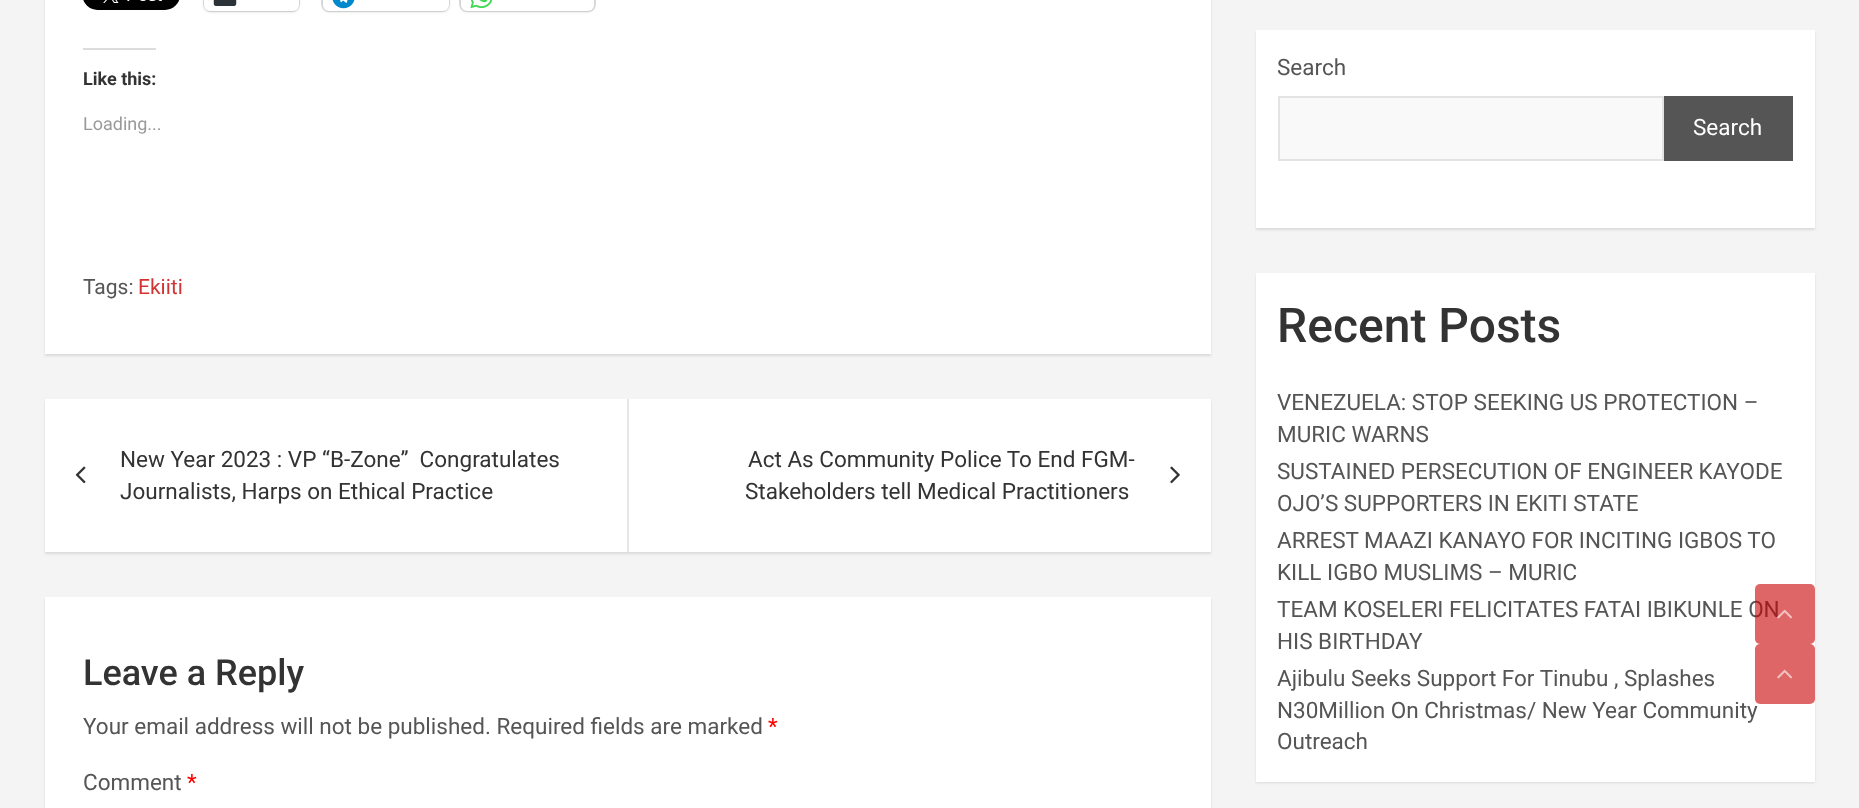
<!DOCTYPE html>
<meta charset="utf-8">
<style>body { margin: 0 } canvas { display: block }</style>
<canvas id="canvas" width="1859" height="808"></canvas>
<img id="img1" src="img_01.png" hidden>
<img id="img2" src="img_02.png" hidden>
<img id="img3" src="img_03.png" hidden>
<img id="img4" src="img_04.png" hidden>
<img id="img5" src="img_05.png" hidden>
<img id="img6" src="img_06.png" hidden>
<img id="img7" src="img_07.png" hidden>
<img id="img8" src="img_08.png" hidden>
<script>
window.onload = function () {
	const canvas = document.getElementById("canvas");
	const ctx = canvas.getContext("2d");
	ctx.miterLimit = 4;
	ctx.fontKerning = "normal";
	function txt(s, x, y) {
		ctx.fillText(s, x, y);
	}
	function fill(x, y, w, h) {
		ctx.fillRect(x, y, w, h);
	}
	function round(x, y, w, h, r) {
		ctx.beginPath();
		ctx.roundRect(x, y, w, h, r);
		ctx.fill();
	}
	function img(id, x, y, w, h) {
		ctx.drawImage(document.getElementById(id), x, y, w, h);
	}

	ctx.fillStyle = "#F4F4F4";
	fill(0, 0, 1859, 808);
	ctx.fillStyle = "rgba(0, 0, 0, 0.1)";
	ctx.filter = "blur(1px)";
	ctx.beginPath();
	ctx.rect(45, -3, 1166, 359);
	ctx.fill();
	ctx.filter = "none";
	ctx.fillStyle = "#FFFFFF";
	fill(45, 0, 1166, 354);
	img("img1", 83, 0, 97, 10);
	ctx.beginPath();
	ctx.roundRect(204, -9, 95, 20, 7);
	ctx.strokeStyle = "#E0E0E0";
	ctx.lineWidth = 2;
	ctx.stroke();
	ctx.fillStyle = "rgba(0, 0, 0, 0.12)";
	ctx.filter = "blur(1.5px)";
	ctx.beginPath();
	ctx.roundRect(204, -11, 95, 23, 6);
	ctx.fill();
	ctx.filter = "none";
	ctx.fillStyle = "#FFFFFF";
	round(204, -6, 95, 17, 6);
	img("img2", 213, 0, 24, 6);
	ctx.beginPath();
	ctx.roundRect(322, -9, 127, 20, 7);
	ctx.stroke();
	ctx.fillStyle = "rgba(0, 0, 0, 0.12)";
	ctx.filter = "blur(1.5px)";
	ctx.beginPath();
	ctx.roundRect(323, -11, 126, 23, 6);
	ctx.fill();
	ctx.filter = "none";
	ctx.fillStyle = "#FFFFFF";
	round(323, -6, 126, 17, 6);
	img("img3", 332, 0, 23, 9);
	ctx.beginPath();
	ctx.roundRect(460, -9, 135, 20, 7);
	ctx.stroke();
	ctx.fillStyle = "rgba(0, 0, 0, 0.12)";
	ctx.filter = "blur(1.5px)";
	ctx.beginPath();
	ctx.roundRect(461, -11, 133, 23, 6);
	ctx.fill();
	ctx.filter = "none";
	ctx.fillStyle = "#FFFFFF";
	round(461, -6, 133, 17, 6);
	img("img4", 470, 0, 23, 9);
	ctx.fillStyle = "#DCDCDE";
	fill(83, 48, 73, 2);
	ctx.fillStyle = "rgba(0, 0, 0, 0.1)";
	ctx.filter = "blur(1px)";
	ctx.beginPath();
	ctx.rect(45, 401, 1166, 153);
	ctx.fill();
	ctx.filter = "none";
	ctx.fillStyle = "#FFFFFF";
	fill(45, 399, 1166, 153);
	img("img5", 75, 466, 11, 18);
	ctx.fillStyle = "#E6E6E6";
	fill(627, 399, 2, 153);
	img("img6", 1170, 466, 10, 18);
	ctx.fillStyle = "rgba(0, 0, 0, 0.1)";
	ctx.filter = "blur(1px)";
	ctx.beginPath();
	ctx.rect(45, 599, 1166, 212);
	ctx.fill();
	ctx.filter = "none";
	ctx.fillStyle = "#FFFFFF";
	fill(45, 597, 1166, 211);
	ctx.fillStyle = "rgba(0, 0, 0, 0.1)";
	ctx.filter = "blur(1px)";
	ctx.beginPath();
	ctx.rect(1256, 32, 559, 198);
	ctx.fill();
	ctx.filter = "none";
	ctx.fillStyle = "#FFFFFF";
	fill(1256, 30, 559, 198);
	ctx.fillStyle = "#F9F9F9";
	ctx.beginPath();
	ctx.rect(1279, 97, 384, 63);
	ctx.fill();
	ctx.strokeStyle = "#E3E3E3";
	ctx.stroke();
	ctx.fillStyle = "#555555";
	fill(1664, 96, 129, 65);
	ctx.fillStyle = "rgba(0, 0, 0, 0.1)";
	ctx.filter = "blur(1px)";
	ctx.beginPath();
	ctx.rect(1256, 275, 559, 508);
	ctx.fill();
	ctx.filter = "none";
	ctx.fillStyle = "#FFFFFF";
	fill(1256, 273, 559, 509);
	ctx.font = "bold 18px Roboto";
	ctx.fillStyle = "#333333";
	txt("Like this:", 83, 85);
	ctx.font = "18px Roboto";
	ctx.fillStyle = "#999999";
	txt("Loading...", 83, 130);
	ctx.font = "21px Roboto";
	ctx.fillStyle = "#555555";
	txt("Tags:", 83, 294);
	ctx.fillStyle = "#D33333";
	txt("Ekiiti", 138, 294);
	ctx.font = "22.5px Roboto";
	ctx.fillStyle = "#333333";
	txt("New Year 2023 : VP “B-Zone”  Congratulates", 120, 467);
	txt("Journalists, Harps on Ethical Practice", 120, 499);
	txt("Act As Community Police To End FGM-", 748, 467);
	txt("Stakeholders tell Medical Practitioners", 745, 499);
	ctx.font = "500 36px Roboto";
	txt("Leave a Reply", 83, 685);
	ctx.font = "22.5px Roboto";
	ctx.fillStyle = "#555555";
	txt("Your email address will not be published. Required fields are marked", 83, 734);
	ctx.fillStyle = "#FF0000";
	txt("*", 768, 734);
	ctx.fillStyle = "#555555";
	txt("Comment", 83, 790);
	ctx.fillStyle = "#FF0000";
	txt("*", 187, 790);
	ctx.fillStyle = "#555555";
	txt("Search", 1277, 75);
	ctx.fillStyle = "#FFFFFF";
	txt("Search", 1693, 135);
	ctx.font = "500 48px Roboto";
	ctx.fillStyle = "#333333";
	txt("Recent Posts", 1277, 342);
	ctx.font = "22.5px Roboto";
	ctx.fillStyle = "#555555";
	txt("VENEZUELA: STOP SEEKING US PROTECTION –", 1277, 410);
	txt("MURIC WARNS", 1277, 442);
	txt("SUSTAINED PERSECUTION OF ENGINEER KAYODE", 1277, 479);
	txt("OJO’S SUPPORTERS IN EKITI STATE", 1277, 511);
	txt("ARREST MAAZI KANAYO FOR INCITING IGBOS TO", 1277, 548);
	txt("KILL IGBO MUSLIMS – MURIC", 1277, 580);
	txt("TEAM KOSELERI FELICITATES FATAI IBIKUNLE ON", 1277, 617);
	txt("HIS BIRTHDAY", 1277, 649);
	txt("Ajibulu Seeks Support For Tinubu , Splashes", 1277, 686);
	txt("N30Million On Christmas/ New Year Community", 1277, 718);
	txt("Outreach", 1277, 749);
	ctx.fillStyle = "rgba(200, 0, 0, 0.6)";
	round(1755, 584, 60, 60, 5);
	img("img7", 1777, 609, 16, 10);
	ctx.fillStyle = "#DE6666";
	round(1755, 644, 60, 60, 5);
	img("img8", 1777, 669, 16, 10);
};
</script>
